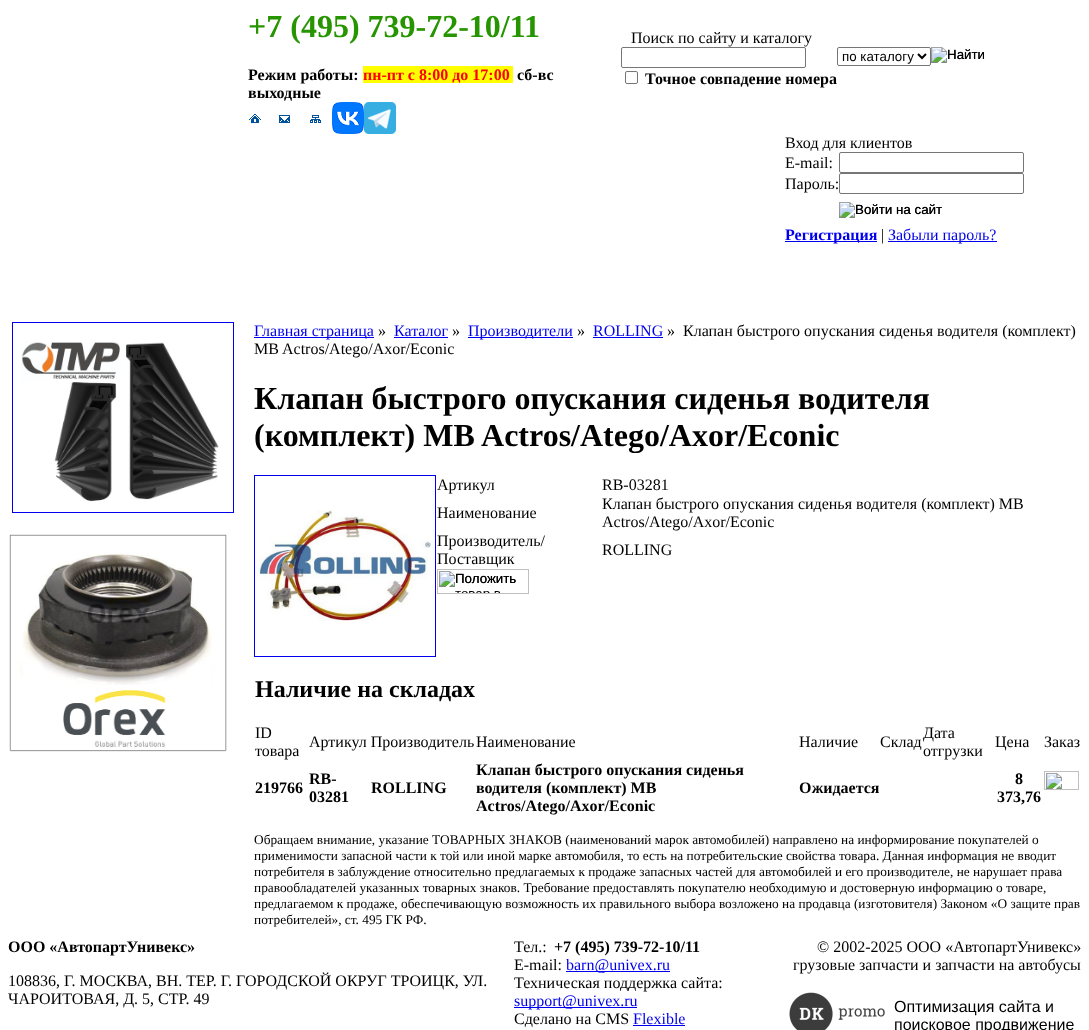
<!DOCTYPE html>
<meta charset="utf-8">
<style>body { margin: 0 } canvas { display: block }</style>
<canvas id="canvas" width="1089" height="1030"></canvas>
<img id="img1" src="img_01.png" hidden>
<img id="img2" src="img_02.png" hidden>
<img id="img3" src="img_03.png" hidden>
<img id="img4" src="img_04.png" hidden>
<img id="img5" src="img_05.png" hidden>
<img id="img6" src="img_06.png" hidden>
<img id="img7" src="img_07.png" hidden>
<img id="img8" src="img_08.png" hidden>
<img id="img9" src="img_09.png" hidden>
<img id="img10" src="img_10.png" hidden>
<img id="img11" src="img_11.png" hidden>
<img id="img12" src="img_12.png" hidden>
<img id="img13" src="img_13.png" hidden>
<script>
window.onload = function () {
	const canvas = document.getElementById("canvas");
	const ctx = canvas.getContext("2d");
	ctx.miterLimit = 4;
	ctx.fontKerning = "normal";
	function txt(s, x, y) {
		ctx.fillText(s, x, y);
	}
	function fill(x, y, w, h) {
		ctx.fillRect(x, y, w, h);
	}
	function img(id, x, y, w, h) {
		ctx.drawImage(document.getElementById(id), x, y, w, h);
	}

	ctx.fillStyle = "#FFFFFF";
	fill(0, 0, 1089, 1030);
	ctx.fillStyle = "#FFFF00";
	fill(363, 66, 150, 17);
	ctx.beginPath();
	ctx.roundRect(837.5, 47.5, 93, 18, 1.5);
	ctx.strokeStyle = "#767676";
	ctx.stroke();
	ctx.beginPath();
	ctx.moveTo(918, 54);
	ctx.lineTo(922, 58);
	ctx.lineTo(926, 54);
	ctx.strokeStyle = "#000000";
	ctx.lineWidth = 2;
	ctx.stroke();
	img("img1", 931, 47, 53, 16);
	ctx.beginPath();
	ctx.roundRect(621.5, 47.5, 184, 20, 1.5);
	ctx.strokeStyle = "#767676";
	ctx.lineWidth = 1;
	ctx.stroke();
	ctx.beginPath();
	ctx.roundRect(625.5, 71.5, 12, 12, 1.5);
	ctx.stroke();
	img("img2", 249, 114, 12, 9);
	img("img3", 279, 115, 11, 8);
	img("img4", 310, 115, 11, 8);
	img("img5", 332, 102, 32, 32);
	img("img6", 364, 102, 32, 32);
	ctx.beginPath();
	ctx.roundRect(839.5, 152.5, 184, 20, 1.5);
	ctx.stroke();
	ctx.beginPath();
	ctx.roundRect(839.5, 173.5, 184, 20, 1.5);
	ctx.stroke();
	img("img7", 839, 202, 103, 16);
	ctx.fillStyle = "#0000EE";
	fill(785, 241, 92, 1);
	fill(888, 241, 109, 1);
	ctx.strokeStyle = "#0000EE";
	ctx.strokeRect(12.5, 322.5, 221, 190);
	img("img8", 21, 342, 198, 160);
	img("img9", 9, 534, 218, 218);
	fill(254, 337, 120, 1);
	fill(394, 337, 54, 1);
	fill(468, 337, 105, 1);
	fill(593, 337, 70, 1);
	ctx.strokeRect(254.5, 475.5, 181, 181);
	img("img10", 255, 510, 179, 111);
	img("img11", 437, 569, 92, 25);
	img("img12", 1044, 771, 35, 19);
	fill(566, 971, 104, 1);
	fill(514, 1007, 123, 1);
	fill(633, 1025, 52, 1);
	img("img13", 789, 992, 96, 38);
	ctx.font = "bold 32px Liberation Serif";
	ctx.fillStyle = "#279500";
	txt("+7 (495) 739-72-10/11", 248, 37);
	ctx.font = "bold 16px Liberation Serif";
	ctx.fillStyle = "#000000";
	txt("Режим работы:", 248, 80);
	ctx.fillStyle = "#FF0000";
	txt("пн-пт с 8:00 до 17:00", 363, 80);
	ctx.fillStyle = "#000000";
	txt("сб-вс", 517, 80);
	txt("выходные", 248, 98);
	ctx.font = "16px Liberation Serif";
	txt("Поиск по сайту и каталогу", 631, 43);
	ctx.font = "13.33px Liberation Sans";
	txt("по каталогу", 842, 61);
	txt("Найти", 947, 59);
	ctx.font = "bold 16px Liberation Serif";
	txt("Точное совпадение номера", 645, 84);
	ctx.font = "16px Liberation Serif";
	txt("Вход для клиентов", 785, 148);
	txt("E-mail:", 785, 168);
	txt("Пароль:", 785, 189);
	ctx.font = "13.33px Liberation Sans";
	txt("Войти на сайт", 855, 214);
	ctx.font = "bold 16px Liberation Serif";
	ctx.fillStyle = "#0000EE";
	txt("Регистрация", 785, 240);
	ctx.font = "16px Liberation Serif";
	ctx.fillStyle = "#000000";
	txt("|", 881, 240);
	ctx.fillStyle = "#0000EE";
	txt("Забыли пароль?", 888, 240);
	txt("Главная страница", 254, 336);
	ctx.fillStyle = "#000000";
	txt("»", 378, 336);
	ctx.fillStyle = "#0000EE";
	txt("Каталог", 394, 336);
	ctx.fillStyle = "#000000";
	txt("»", 452, 336);
	ctx.fillStyle = "#0000EE";
	txt("Производители", 468, 336);
	ctx.fillStyle = "#000000";
	txt("»", 577, 336);
	ctx.fillStyle = "#0000EE";
	txt("ROLLING", 593, 336);
	ctx.fillStyle = "#000000";
	txt("»", 667, 336);
	txt("Клапан быстрого опускания сиденья водителя (комплект)", 683, 336);
	txt("MB Actros/Atego/Axor/Econic", 254, 354);
	ctx.font = "bold 32px Liberation Serif";
	txt("Клапан быстрого опускания сиденья водителя", 254, 409);
	txt("(комплект) MB Actros/Atego/Axor/Econic", 254, 446);
	ctx.font = "16px Liberation Serif";
	txt("Артикул", 437, 490);
	txt("RB-03281", 602, 490);
	txt("Наименование", 437, 518);
	txt("Клапан быстрого опускания сиденья водителя (комплект) MB", 602, 509);
	txt("Actros/Atego/Axor/Econic", 602, 527);
	txt("Производитель/", 437, 546);
	txt("Поставщик", 437, 564);
	txt("ROLLING", 602, 555);
	ctx.font = "13.33px Liberation Sans";
	txt("Положить", 455, 583);
	ctx.font = "bold 24px Liberation Serif";
	txt("Наличие на складах", 255, 697);
	ctx.font = "16px Liberation Serif";
	txt("ID", 255, 738);
	txt("товара", 255, 756);
	txt("Артикул Производитель", 309, 747);
	txt("Наименование", 476, 747);
	txt("Наличие", 799, 747);
	txt("Склад", 880, 747);
	txt("Дата", 923, 738);
	txt("отгрузки", 923, 756);
	txt("Цена", 995, 747);
	txt("Заказ", 1044, 747);
	ctx.font = "bold 16px Liberation Serif";
	txt("219766", 255, 793);
	txt("RB-", 309, 784);
	txt("03281", 309, 802);
	txt("ROLLING", 371, 793);
	txt("Клапан быстрого опускания сиденья", 476, 775);
	txt("водителя (комплект) MB", 476, 793);
	txt("Actros/Atego/Axor/Econic", 476, 811);
	txt("Ожидается", 799, 793);
	txt("8", 1015, 784);
	txt("373,76", 997, 802);
	ctx.font = "13.33px Liberation Serif";
	txt("Обращаем внимание, указание ТОВАРНЫХ ЗНАКОВ (наименований марок автомобилей) направлено на информирование покупателей о", 254, 844);
	txt("применимости запасной части к той или иной марке автомобиля, то есть на потребительские свойства товара. Данная информация не вводит", 254, 860);
	txt("потребителя в заблуждение относительно предлагаемых к продаже запасных частей для автомобилей и его производителе, не нарушает права", 254, 876);
	txt("правообладателей указанных товарных знаков. Требование предоставлять покупателю необходимую и достоверную информацию о товаре,", 254, 892);
	txt("предлагаемом к продаже, обеспечивающую возможность их правильного выбора возложено на продавца (изготовителя) Законом «О защите прав", 254, 908);
	txt("потребителей», ст. 495 ГК РФ.", 254, 924);
	ctx.font = "bold 16px Liberation Serif";
	txt("ООО «АвтопартУнивекс»", 8, 952);
	ctx.font = "16px Liberation Serif";
	txt("108836, Г. МОСКВА, ВН. ТЕР. Г. ГОРОДСКОЙ ОКРУГ ТРОИЦК, УЛ.", 8, 986);
	txt("ЧАРОИТОВАЯ, Д. 5, СТР. 49", 8, 1004);
	txt("Тел.:", 514, 952);
	ctx.font = "bold 16px Liberation Serif";
	txt("+7 (495) 739-72-10/11", 554, 952);
	ctx.font = "16px Liberation Serif";
	txt("E-mail:", 514, 970);
	ctx.fillStyle = "#0000EE";
	txt("barn@univex.ru", 566, 970);
	ctx.fillStyle = "#000000";
	txt("Техническая поддержка сайта:", 514, 988);
	ctx.fillStyle = "#0000EE";
	txt("support@univex.ru", 514, 1006);
	ctx.fillStyle = "#000000";
	txt("Сделано на CMS", 514, 1024);
	ctx.fillStyle = "#0000EE";
	txt("Flexible", 633, 1024);
	ctx.fillStyle = "#000000";
	txt("© 2002-2025 ООО «АвтопартУнивекс»", 817, 952);
	txt("грузовые запчасти и запчасти на автобусы", 793, 970);
	ctx.font = "16px Liberation Sans";
	txt("Оптимизация сайта и", 894, 1012);
	txt("поисковое продвижение", 894, 1030);
};
</script>
